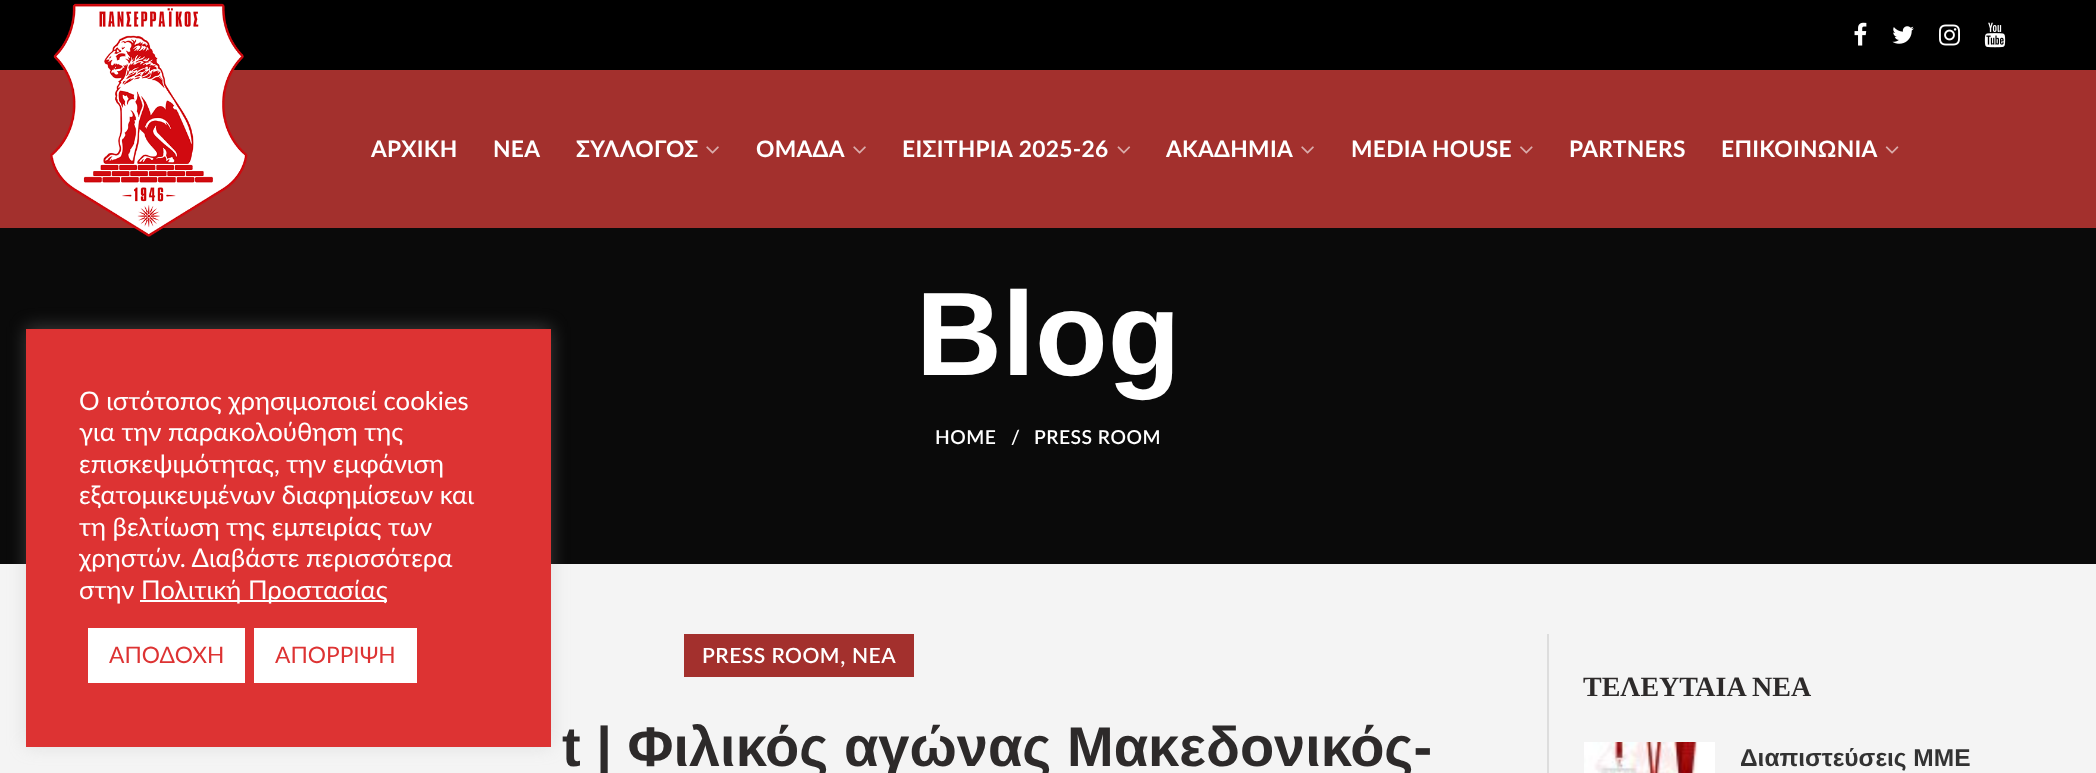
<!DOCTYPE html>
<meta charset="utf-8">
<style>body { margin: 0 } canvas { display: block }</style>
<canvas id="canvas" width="2096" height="773"></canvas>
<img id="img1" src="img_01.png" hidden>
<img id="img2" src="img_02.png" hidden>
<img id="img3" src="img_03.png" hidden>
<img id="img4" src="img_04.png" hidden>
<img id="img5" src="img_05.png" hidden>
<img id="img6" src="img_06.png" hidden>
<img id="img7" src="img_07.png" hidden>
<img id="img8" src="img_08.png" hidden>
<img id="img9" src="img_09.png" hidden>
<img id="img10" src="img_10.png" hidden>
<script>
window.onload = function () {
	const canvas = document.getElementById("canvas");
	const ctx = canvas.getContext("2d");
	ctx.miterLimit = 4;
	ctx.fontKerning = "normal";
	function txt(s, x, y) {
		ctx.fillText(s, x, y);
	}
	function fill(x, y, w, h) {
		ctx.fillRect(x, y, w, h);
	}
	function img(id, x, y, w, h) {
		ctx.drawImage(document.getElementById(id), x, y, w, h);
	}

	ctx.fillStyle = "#F4F4F4";
	fill(0, 0, 2096, 773);
	ctx.fillStyle = "#0A0A0A";
	fill(0, 228, 2096, 336);
	ctx.fillStyle = "rgba(172, 171, 171, 0.3)";
	ctx.filter = "blur(9px)";
	ctx.beginPath();
	ctx.rect(26, 327, 525, 419);
	ctx.fill();
	ctx.filter = "none";
	ctx.fillStyle = "#DD3333";
	fill(26, 329, 525, 418);
	ctx.fillStyle = "#FFFFFF";
	fill(140, 600, 247, 2);
	fill(88, 628, 157, 55);
	fill(254, 628, 163, 55);
	ctx.fillStyle = "#000000";
	fill(0, 0, 2096, 70);
	img("img1", 1854, 22, 13, 24);
	img("img2", 1892, 26, 22, 18);
	img("img3", 1939, 24, 21, 22);
	img("img4", 1984, 22, 22, 26);
	ctx.fillStyle = "#A3302D";
	fill(0, 70, 2096, 158);
	img("img5", 50, 3, 198, 234);
	img("img6", 706, 146, 13, 8);
	img("img6", 853, 146, 13, 8);
	img("img7", 1117, 146, 14, 8);
	img("img6", 1301, 146, 13, 8);
	img("img8", 1520, 146, 13, 8);
	img("img9", 1885, 146, 14, 8);
	fill(684, 634, 230, 43);
	ctx.fillStyle = "#DDDDDD";
	fill(1547, 634, 2, 139);
	img("img10", 1584, 742, 131, 31);
	ctx.font = "25.7px Lato";
	ctx.fillStyle = "#FFFFFF";
	txt("Ο ιστότοπος χρησιμοποιεί cookies", 79, 410);
	txt("για την παρακολούθηση της", 79, 441);
	txt("επισκεψιμότητας, την εμφάνιση", 79, 473);
	txt("εξατομικευμένων διαφημίσεων και", 79, 504);
	txt("τη βελτίωση της εμπειρίας των", 79, 536);
	txt("χρηστών. Διαβάστε περισσότερα", 79, 567);
	txt("στην", 79, 599);
	txt("Πολιτική Προστασίας", 141, 599);
	ctx.font = "22.75px Lato";
	ctx.fillStyle = "#DD3333";
	txt("ΑΠΟΔΟΧΗ", 109, 663);
	txt("ΑΠΟΡΡΙΨΗ", 275, 663);
	ctx.letterSpacing = "0.3px";
	ctx.font = "bold 22.75px Lato";
	ctx.fillStyle = "#FFFFFF";
	txt("ΑΡΧΙΚΗ", 371, 157);
	txt("ΝΕΑ", 493, 157);
	txt("ΣΥΛΛΟΓΟΣ", 576, 157);
	txt("ΟΜΑΔΑ", 756, 157);
	txt("ΕΙΣΙΤΗΡΙΑ 2025-26", 902, 157);
	txt("ΑΚΑΔΗΜΙΑ", 1166, 157);
	txt("MEDIA HOUSE", 1351, 157);
	txt("PARTNERS", 1569, 157);
	txt("ΕΠΙΚΟΙΝΩΝΙΑ", 1721, 157);
	ctx.letterSpacing = "0px";
	ctx.font = "bold 119px Liberation Sans";
	txt("Blog", 916, 375);
	ctx.letterSpacing = "0.5px";
	ctx.font = "600 19.25px Lato";
	txt("HOME", 935, 444);
	txt("/", 1011, 444);
	txt("PRESS ROOM", 1034, 444);
	ctx.font = "600 21px Lato";
	txt("PRESS ROOM", 702, 663);
	txt("ΝΕΑ", 852, 663);
	ctx.letterSpacing = "0px";
	ctx.font = "24.5px Lato";
	txt(",", 840, 664);
	ctx.font = "bold 56px Liberation Sans";
	ctx.fillStyle = "#2D2A2A";
	txt("t | Φιλικός αγώνας Μακεδονικός-", 562, 766);
	ctx.font = "bold 28px Liberation Serif";
	txt("ΤΕΛΕΥΤΑΙΑ ΝΕΑ", 1583, 696);
	ctx.font = "bold 24.5px Liberation Sans";
	ctx.fillStyle = "#333333";
	txt("Διαπιστεύσεις ΜΜΕ", 1740, 766);
};
</script>
